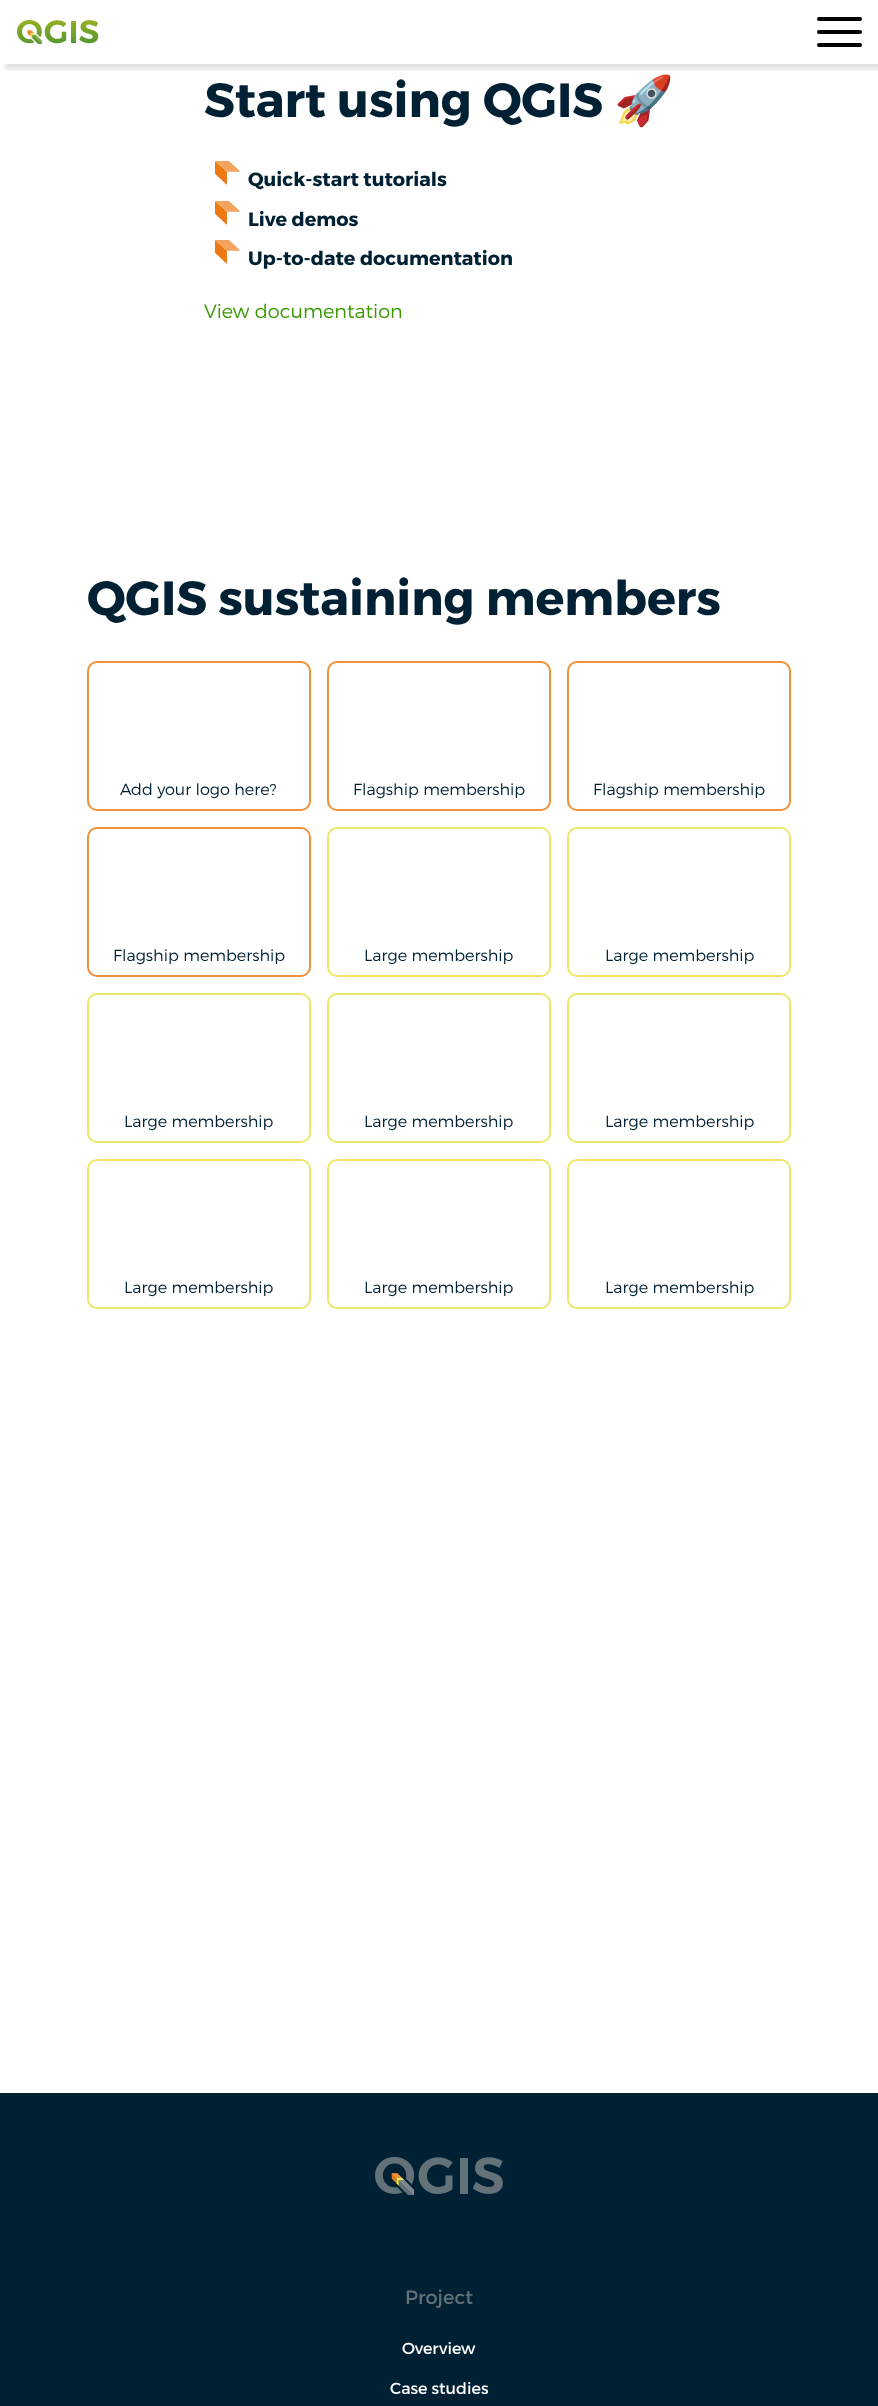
<!DOCTYPE html>
<meta charset="utf-8">
<style>body { margin: 0 } canvas { display: block }</style>
<canvas id="canvas" width="878" height="2406"></canvas>
<img id="img1" src="img_01.png" hidden>
<img id="img2" src="img_02.png" hidden>
<img id="img3" src="img_03.png" hidden>
<img id="img4" src="img_04.png" hidden>
<script>
window.onload = function () {
	const canvas = document.getElementById("canvas");
	const ctx = canvas.getContext("2d");
	ctx.miterLimit = 4;
	ctx.fontKerning = "normal";
	function txt(s, x, y) {
		ctx.fillText(s, x, y);
	}
	function fill(x, y, w, h) {
		ctx.fillRect(x, y, w, h);
	}
	function round(x, y, w, h, r) {
		ctx.beginPath();
		ctx.roundRect(x, y, w, h, r);
		ctx.fill();
	}
	function img(id, x, y, w, h) {
		ctx.drawImage(document.getElementById(id), x, y, w, h);
	}

	ctx.fillStyle = "#FFFFFF";
	fill(0, 0, 878, 2406);
	ctx.save();
	ctx.beginPath();
	ctx.rect(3, 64, 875, 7);
	ctx.clip();
	ctx.fillStyle = "rgba(0, 0, 0, 0.12)";
	ctx.filter = "blur(2.5px)";
	ctx.beginPath();
	ctx.rect(5, 5, 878, 64);
	ctx.fill();
	ctx.filter = "none";
	ctx.restore();
	img("img1", 17, 20, 82, 24);
	ctx.fillStyle = "#000000";
	round(817, 17, 45, 4, 2);
	round(817, 30, 45, 4, 2);
	round(817, 43, 45, 4, 2);
	img("img2", 215, 161, 26, 24);
	img("img3", 215, 201, 26, 24);
	img("img2", 215, 240, 26, 24);
	ctx.beginPath();
	ctx.roundRect(88, 662, 222, 148, 9);
	ctx.strokeStyle = "#F1903B";
	ctx.lineWidth = 2;
	ctx.stroke();
	ctx.beginPath();
	ctx.roundRect(328, 662, 222, 148, 9);
	ctx.stroke();
	ctx.beginPath();
	ctx.roundRect(568, 662, 222, 148, 9);
	ctx.stroke();
	ctx.beginPath();
	ctx.roundRect(88, 828, 222, 148, 9);
	ctx.stroke();
	ctx.beginPath();
	ctx.roundRect(328, 828, 222, 148, 9);
	ctx.strokeStyle = "#EEE766";
	ctx.stroke();
	ctx.beginPath();
	ctx.roundRect(568, 828, 222, 148, 9);
	ctx.stroke();
	ctx.beginPath();
	ctx.roundRect(88, 994, 222, 148, 9);
	ctx.stroke();
	ctx.beginPath();
	ctx.roundRect(328, 994, 222, 148, 9);
	ctx.stroke();
	ctx.beginPath();
	ctx.roundRect(568, 994, 222, 148, 9);
	ctx.stroke();
	ctx.beginPath();
	ctx.roundRect(88, 1160, 222, 148, 9);
	ctx.stroke();
	ctx.beginPath();
	ctx.roundRect(328, 1160, 222, 148, 9);
	ctx.stroke();
	ctx.beginPath();
	ctx.roundRect(568, 1160, 222, 148, 9);
	ctx.stroke();
	ctx.fillStyle = "#002033";
	fill(0, 2093, 878, 313);
	img("img4", 375, 2157, 128, 38);
	ctx.font = "bold 48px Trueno";
	txt("Start using QGIS", 204, 117);
	ctx.font = "bold 48px Noto Color Emoji";
	txt("🚀", 614, 117);
	ctx.font = "bold 19.25px Trueno";
	txt("Quick-start tutorials", 248, 186);
	txt("Live demos", 248, 226);
	txt("Up-to-date documentation", 248, 265);
	ctx.font = "300 19.25px Trueno";
	ctx.fillStyle = "#3A9800";
	txt("View documentation", 204, 318);
	ctx.font = "bold 48px Trueno";
	ctx.fillStyle = "#002033";
	txt("QGIS sustaining members", 87, 615);
	ctx.font = "300 16px Trueno";
	txt("Add your logo here?", 120, 795);
	txt("Flagship membership", 353, 795);
	txt("Flagship membership", 593, 795);
	txt("Flagship membership", 113, 961);
	txt("Large membership", 364, 961);
	txt("Large membership", 605, 961);
	txt("Large membership", 124, 1127);
	txt("Large membership", 364, 1127);
	txt("Large membership", 605, 1127);
	txt("Large membership", 124, 1293);
	txt("Large membership", 364, 1293);
	txt("Large membership", 605, 1293);
	ctx.font = "19.25px Trueno";
	ctx.fillStyle = "#637179";
	txt("Project", 405, 2304);
	ctx.font = "16px Trueno";
	ctx.fillStyle = "#FFFFFF";
	txt("Overview", 402, 2354);
	txt("Case studies", 390, 2394);
};
</script>
